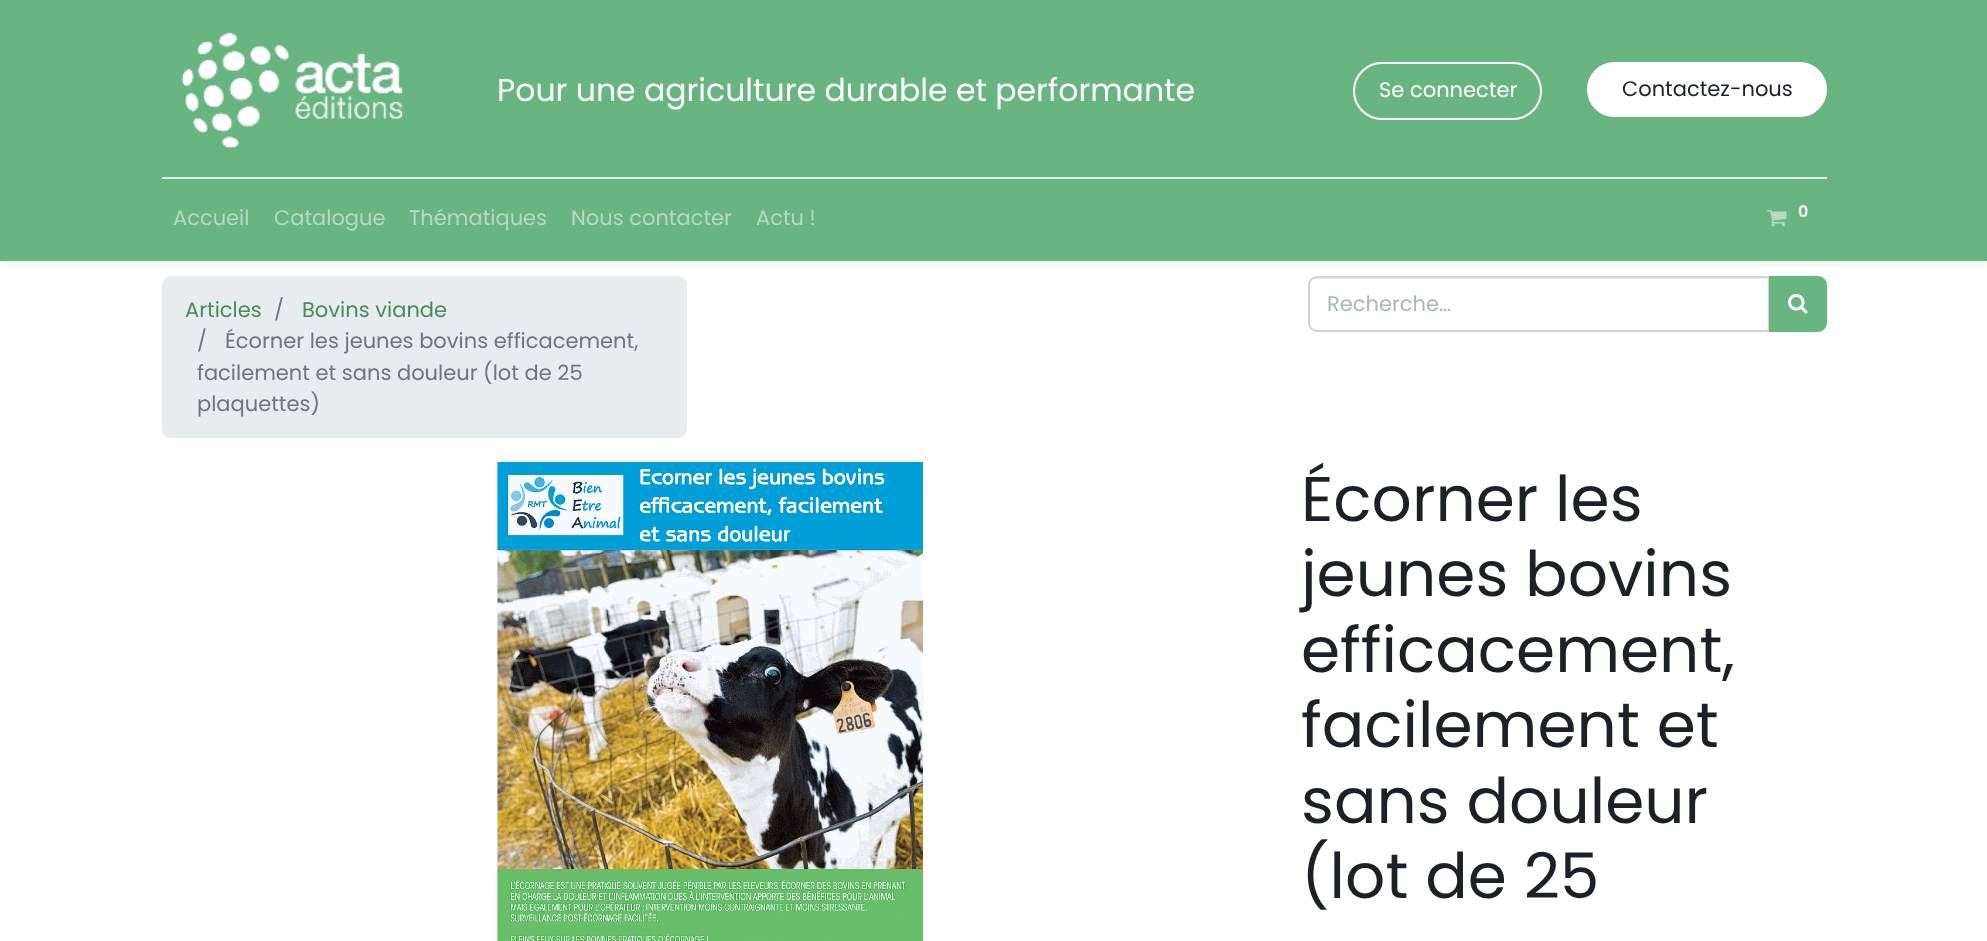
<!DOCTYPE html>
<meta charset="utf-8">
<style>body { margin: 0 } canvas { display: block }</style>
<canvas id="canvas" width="1987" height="941"></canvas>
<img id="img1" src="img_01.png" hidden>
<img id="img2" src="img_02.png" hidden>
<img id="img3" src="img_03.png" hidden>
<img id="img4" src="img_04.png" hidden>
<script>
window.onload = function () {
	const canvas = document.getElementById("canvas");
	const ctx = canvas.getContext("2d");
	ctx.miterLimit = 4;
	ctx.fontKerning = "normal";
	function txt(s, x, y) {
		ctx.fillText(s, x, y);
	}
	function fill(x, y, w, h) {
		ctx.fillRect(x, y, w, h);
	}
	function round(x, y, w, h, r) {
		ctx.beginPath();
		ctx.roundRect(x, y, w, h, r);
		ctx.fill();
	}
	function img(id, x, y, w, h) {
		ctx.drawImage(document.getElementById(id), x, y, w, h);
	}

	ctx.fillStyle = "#FFFFFF";
	fill(0, 0, 1987, 941);
	ctx.fillStyle = "rgba(0, 0, 0, 0.07)";
	ctx.filter = "blur(3px)";
	ctx.beginPath();
	ctx.rect(0, 3, 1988, 261);
	ctx.fill();
	ctx.filter = "none";
	ctx.fillStyle = "#68B581";
	fill(0, 0, 1987, 261);
	img("img1", 181, 32, 222, 117);
	ctx.beginPath();
	ctx.roundRect(1354, 63, 187, 56, 28);
	ctx.strokeStyle = "#FFFFFF";
	ctx.lineWidth = 2;
	ctx.stroke();
	ctx.fillStyle = "#FFFFFF";
	ctx.beginPath();
	ctx.roundRect(1588, 63, 238, 53, 26.5);
	ctx.fill();
	ctx.stroke();
	ctx.fillStyle = "#E9ECEF";
	fill(162, 177, 1665, 2);
	img("img2", 1767, 210, 20, 17);
	round(162, 276, 525, 162, 9);
	ctx.fillStyle = "#ECECEC";
	ctx.beginPath();
	ctx.moveTo(1317, 279);
	ctx.lineTo(1768, 279);
	ctx.lineTo(1768, 330);
	ctx.lineTo(1769, 330);
	ctx.lineTo(1769, 278);
	ctx.lineTo(1318, 278);
	ctx.bezierCurveTo(1314, 278, 1310, 282, 1310, 286);
	ctx.bezierCurveTo(1310, 282, 1313, 279, 1317, 279);
	ctx.closePath();
	ctx.fill();
	ctx.beginPath();
	ctx.roundRect(1309, 277, 460, 54, [8, 0, 0, 8]);
	ctx.strokeStyle = "#CED4DA";
	ctx.stroke();
	ctx.fillStyle = "#68B581";
	ctx.beginPath();
	ctx.roundRect(1770, 277, 56, 54, [0, 8, 8, 0]);
	ctx.fill();
	ctx.strokeStyle = "#68B581";
	ctx.stroke();
	img("img3", 1788, 294, 20, 20);
	img("img4", 497, 462, 426, 479);
	ctx.font = "31.5px Poppins";
	ctx.fillStyle = "#FFFFFF";
	txt("Pour une agriculture durable et performante", 497, 101);
	ctx.font = "21px Poppins";
	txt("Se connecter", 1379, 97);
	ctx.fillStyle = "#1D2127";
	txt("Contactez-nous", 1622, 96);
	ctx.fillStyle = "#B4DAC0";
	txt("Accueil", 173, 225);
	txt("Catalogue", 274, 225);
	txt("Thématiques", 409, 225);
	txt("Nous contacter", 571, 225);
	txt("Actu !", 756, 225);
	ctx.font = "600 16px Poppins";
	ctx.fillStyle = "#FFFFFF";
	txt("0", 1798, 217);
	ctx.font = "21px Poppins";
	ctx.fillStyle = "#458C5C";
	txt("Articles", 185, 317);
	ctx.fillStyle = "#6C757D";
	txt("/", 274, 317);
	ctx.fillStyle = "#458C5C";
	txt("Bovins viande", 302, 317);
	ctx.fillStyle = "#6C757D";
	txt("/", 197, 348);
	txt("Écorner les jeunes bovins efficacement,", 225, 348);
	txt("facilement et sans douleur (lot de 25", 197, 380);
	txt("plaquettes)", 197, 411);
	ctx.fillStyle = "#ADB5BD";
	txt("Recherche…", 1327, 311);
	ctx.font = "63px Poppins";
	ctx.fillStyle = "#1D2127";
	txt("Écorner les", 1301, 521);
	txt("jeunes bovins", 1301, 596);
	txt("efficacement,", 1301, 672);
	txt("facilement et", 1301, 747);
	txt("sans douleur", 1301, 823);
	txt("(lot de 25", 1301, 898);
};
</script>
